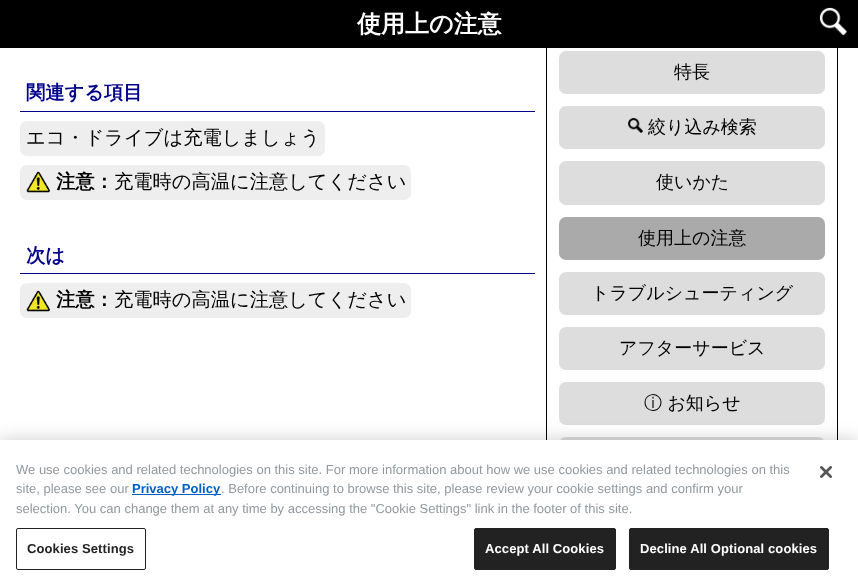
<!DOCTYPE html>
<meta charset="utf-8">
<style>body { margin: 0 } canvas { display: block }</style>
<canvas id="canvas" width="858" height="586"></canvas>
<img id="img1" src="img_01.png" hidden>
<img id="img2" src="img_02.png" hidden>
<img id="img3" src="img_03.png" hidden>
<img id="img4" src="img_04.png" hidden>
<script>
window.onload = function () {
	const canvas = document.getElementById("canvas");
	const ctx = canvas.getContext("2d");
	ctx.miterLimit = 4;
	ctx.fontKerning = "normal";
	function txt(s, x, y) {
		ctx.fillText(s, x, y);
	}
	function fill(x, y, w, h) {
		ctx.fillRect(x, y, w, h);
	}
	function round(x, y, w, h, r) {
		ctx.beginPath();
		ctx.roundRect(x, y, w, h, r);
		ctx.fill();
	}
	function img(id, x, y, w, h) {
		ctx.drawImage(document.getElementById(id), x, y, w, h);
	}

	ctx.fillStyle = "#FFFFFF";
	fill(0, 0, 858, 586);
	ctx.strokeStyle = "#000000";
	ctx.strokeRect(546.5, -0.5, 291, 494);
	ctx.fillStyle = "#000000";
	fill(0, 0, 858, 48);
	img("img1", 819, 7, 29, 29);
	ctx.fillStyle = "#00008B";
	fill(20, 111, 515, 1);
	ctx.fillStyle = "#EEEEEE";
	round(20, 121, 305, 35, 7);
	round(20, 165, 391, 35, 7);
	img("img2", 26, 171, 24, 22);
	ctx.fillStyle = "#00008B";
	fill(20, 273, 515, 1);
	ctx.fillStyle = "#EEEEEE";
	round(20, 283, 391, 35, 7);
	img("img2", 26, 290, 24, 22);
	ctx.fillStyle = "#DDDDDD";
	round(559, 51, 266, 43, 7);
	round(559, 106, 266, 43, 7);
	img("img3", 628, 118, 15, 15);
	round(559, 161, 266, 44, 7);
	ctx.fillStyle = "#AAAAAA";
	round(559, 217, 266, 43, 7);
	ctx.fillStyle = "#DDDDDD";
	round(559, 272, 266, 43, 7);
	round(559, 327, 266, 43, 7);
	round(559, 382, 266, 43, 7);
	round(559, 437, 266, 44, 7);
	ctx.fillStyle = "rgba(0, 0, 0, 0.2)";
	ctx.filter = "blur(9px)";
	ctx.beginPath();
	ctx.rect(0, 440, 858, 146);
	ctx.fill();
	ctx.filter = "none";
	ctx.fillStyle = "#FFFFFF";
	fill(0, 440, 858, 146);
	ctx.fillStyle = "#005EC4";
	fill(132, 494, 89, 1);
	ctx.beginPath();
	ctx.roundRect(16.5, 528.5, 129, 41, 1.5);
	ctx.strokeStyle = "#222222";
	ctx.stroke();
	ctx.fillStyle = "#222222";
	ctx.beginPath();
	ctx.roundRect(474.5, 528.5, 141, 41, 1.5);
	ctx.fill();
	ctx.stroke();
	ctx.beginPath();
	ctx.roundRect(629.5, 528.5, 199, 41, 1.5);
	ctx.fill();
	ctx.stroke();
	img("img4", 820, 466, 12, 12);
	ctx.font = "bold 24px WenQuanYi Zen Hei";
	ctx.fillStyle = "#FFFFFF";
	txt("使用上の注意", 357, 32);
	ctx.font = "bold 19.25px WenQuanYi Zen Hei";
	ctx.fillStyle = "#00008B";
	txt("関連する項目", 26, 99);
	ctx.font = "500 19.25px WenQuanYi Zen Hei";
	ctx.fillStyle = "#000000";
	txt("エコ・ドライブは充電しましょう", 26, 144);
	ctx.font = "bold 19.25px WenQuanYi Zen Hei";
	txt("注意：", 56, 188);
	ctx.font = "500 19.25px WenQuanYi Zen Hei";
	txt("充電時の高温に注意してください", 114, 188);
	ctx.font = "bold 19.25px WenQuanYi Zen Hei";
	ctx.fillStyle = "#00008B";
	txt("次は", 26, 262);
	ctx.fillStyle = "#000000";
	txt("注意：", 56, 306);
	ctx.font = "500 19.25px WenQuanYi Zen Hei";
	txt("充電時の高温に注意してください", 114, 306);
	ctx.font = "500 18px WenQuanYi Zen Hei";
	txt("特長", 674, 78);
	txt("絞り込み検索", 648, 133);
	txt("使いかた", 656, 188);
	txt("使用上の注意", 638, 244);
	txt("トラブルシューティング", 591, 299);
	txt("アフターサービス", 619, 354);
	txt("ⓘ お知らせ", 644, 409);
	ctx.font = "13px Liberation Sans";
	ctx.fillStyle = "#91999F";
	txt("We use cookies and related technologies on this site. For more information about how we use cookies and related technologies on this", 16, 474);
	txt("site, please see our", 16, 493);
	ctx.font = "bold 13px Liberation Sans";
	ctx.fillStyle = "#005EC4";
	txt("Privacy Policy", 132, 493);
	ctx.font = "13px Liberation Sans";
	ctx.fillStyle = "#91999F";
	txt(". Before continuing to browse this site, please review your cookie settings and confirm your", 221, 493);
	txt("selection. You can change them at any time by accessing the \"Cookie Settings\" link in the footer of this site.", 16, 513);
	ctx.letterSpacing = "0.1px";
	ctx.font = "bold 13px Liberation Sans";
	ctx.fillStyle = "#222222";
	txt("Cookies Settings", 27, 553);
	ctx.fillStyle = "#FFFFFF";
	txt("Accept All Cookies", 485, 553);
	txt("Decline All Optional cookies", 640, 553);
};
</script>
